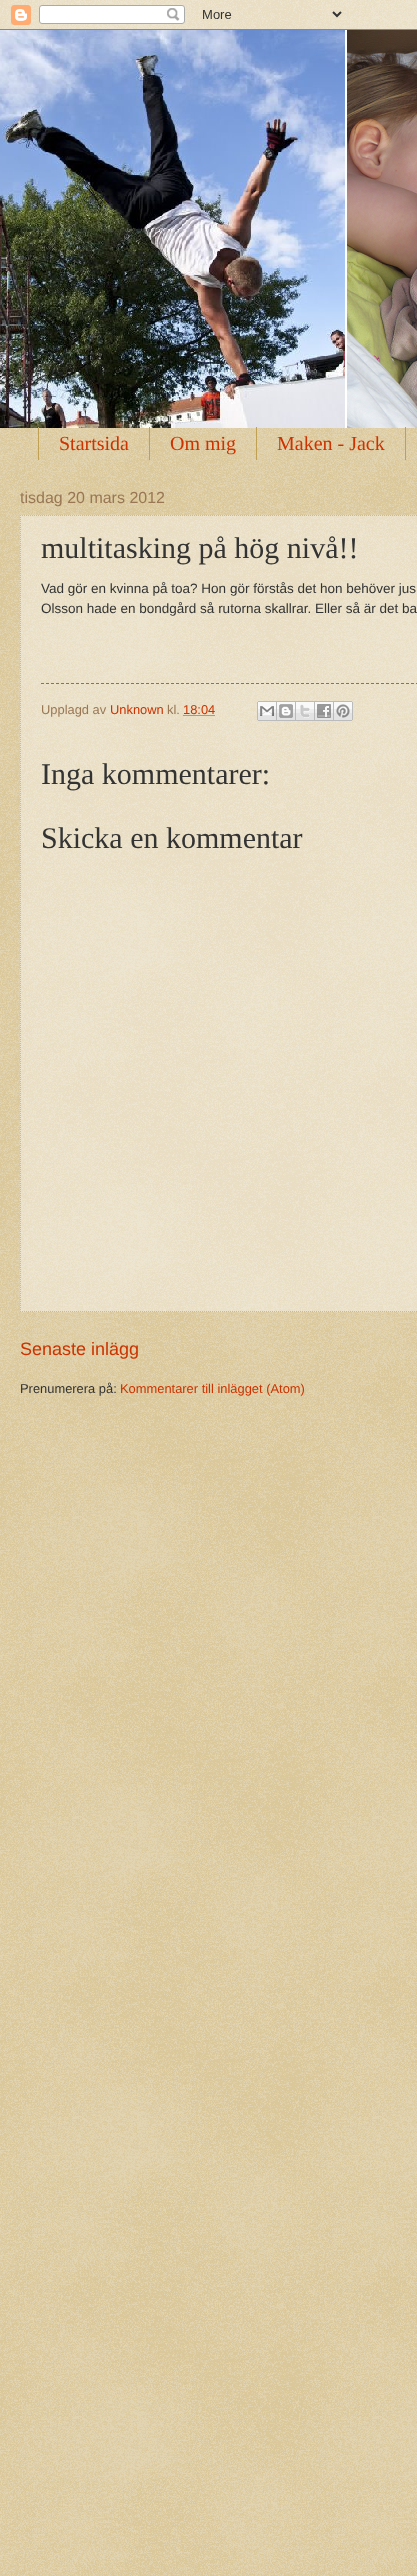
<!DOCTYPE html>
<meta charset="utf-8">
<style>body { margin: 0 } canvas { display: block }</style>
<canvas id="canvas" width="417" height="2576"></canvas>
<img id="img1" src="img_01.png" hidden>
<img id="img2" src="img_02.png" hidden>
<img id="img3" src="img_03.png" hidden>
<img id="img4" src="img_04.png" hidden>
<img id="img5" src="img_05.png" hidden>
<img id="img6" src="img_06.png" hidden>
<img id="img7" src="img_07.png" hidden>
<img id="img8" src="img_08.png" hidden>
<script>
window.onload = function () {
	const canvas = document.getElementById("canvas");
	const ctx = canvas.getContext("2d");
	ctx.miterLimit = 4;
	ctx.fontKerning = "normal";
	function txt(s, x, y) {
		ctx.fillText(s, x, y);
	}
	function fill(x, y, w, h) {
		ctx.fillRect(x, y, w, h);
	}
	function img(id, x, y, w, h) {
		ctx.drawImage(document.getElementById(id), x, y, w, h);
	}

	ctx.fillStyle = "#C0A154";
	fill(0, 0, 417, 2576);
	img("img1", 0, 0, 417, 2576);
	img("img2", 0, 0, 417, 30);
	img("img3", 0, 30, 417, 398);
	fill(149, 427, 1, 33);
	fill(38, 427, 1, 33);
	fill(256, 427, 1, 33);
	fill(405, 427, 1, 33);
	ctx.fillStyle = "rgba(255, 255, 255, 0.4)";
	fill(20, 515, 397, 797);
	ctx.beginPath();
	ctx.moveTo(20, 515.5);
	ctx.lineTo(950, 515.5);
	ctx.strokeStyle = "#CCBB99";
	ctx.setLineDash([1, 1]);
	ctx.stroke();
	ctx.beginPath();
	ctx.moveTo(20, 1311.5);
	ctx.lineTo(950, 1311.5);
	ctx.stroke();
	ctx.beginPath();
	ctx.moveTo(20.5, 515);
	ctx.lineTo(20.5, 1312);
	ctx.stroke();
	ctx.beginPath();
	ctx.moveTo(41, 683.5);
	ctx.lineTo(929, 683.5);
	ctx.strokeStyle = "#777777";
	ctx.setLineDash([3, 2]);
	ctx.stroke();
	ctx.beginPath();
	ctx.moveTo(183.5, 715.5);
	ctx.lineTo(215.5, 715.5);
	ctx.strokeStyle = "#CC3300";
	ctx.setLineDash([1, 1]);
	ctx.stroke();
	img("img4", 257, 701, 20, 20);
	img("img5", 277, 701, 19, 20);
	img("img6", 296, 701, 19, 20);
	img("img7", 315, 701, 19, 20);
	img("img8", 334, 701, 19, 20);
	ctx.font = "20px Liberation Serif";
	ctx.fillStyle = "#CC3300";
	txt("Startsida", 59, 450);
	txt("Om mig", 170, 450);
	txt("Maken - Jack", 277, 450);
	ctx.font = "16px Liberation Sans";
	ctx.fillStyle = "#997755";
	txt("tisdag 20 mars 2012", 20, 503);
	ctx.font = "30px Liberation Serif";
	ctx.fillStyle = "#333333";
	txt("multitasking på hög nivå!!", 41, 558);
	ctx.font = "13.5px Liberation Sans";
	txt("Vad gör en kvinna på toa? Hon gör förstås det hon behöver jus", 41, 593);
	txt("Olsson hade en bondgård så rutorna skallrar. Eller så är det ba", 41, 613);
	ctx.font = "12.9px Liberation Sans";
	ctx.fillStyle = "#997755";
	txt("Upplagd av", 41, 714);
	ctx.fillStyle = "#CC3300";
	txt("Unknown", 110, 714);
	ctx.fillStyle = "#997755";
	txt("kl.", 167, 714);
	ctx.fillStyle = "#CC3300";
	txt("18:04", 183, 714);
	ctx.font = "30px Liberation Serif";
	ctx.fillStyle = "#333333";
	txt("Inga kommentarer:", 41, 784);
	txt("Skicka en kommentar", 41, 848);
	ctx.font = "18px Liberation Sans";
	ctx.fillStyle = "#CC3300";
	txt("Senaste inlägg", 20, 1355);
	ctx.font = "12.9px Liberation Sans";
	ctx.fillStyle = "#333333";
	txt("Prenumerera på:", 20, 1393);
	ctx.fillStyle = "#CC3300";
	txt("Kommentarer till inlägget (Atom)", 120, 1393);
};
</script>
